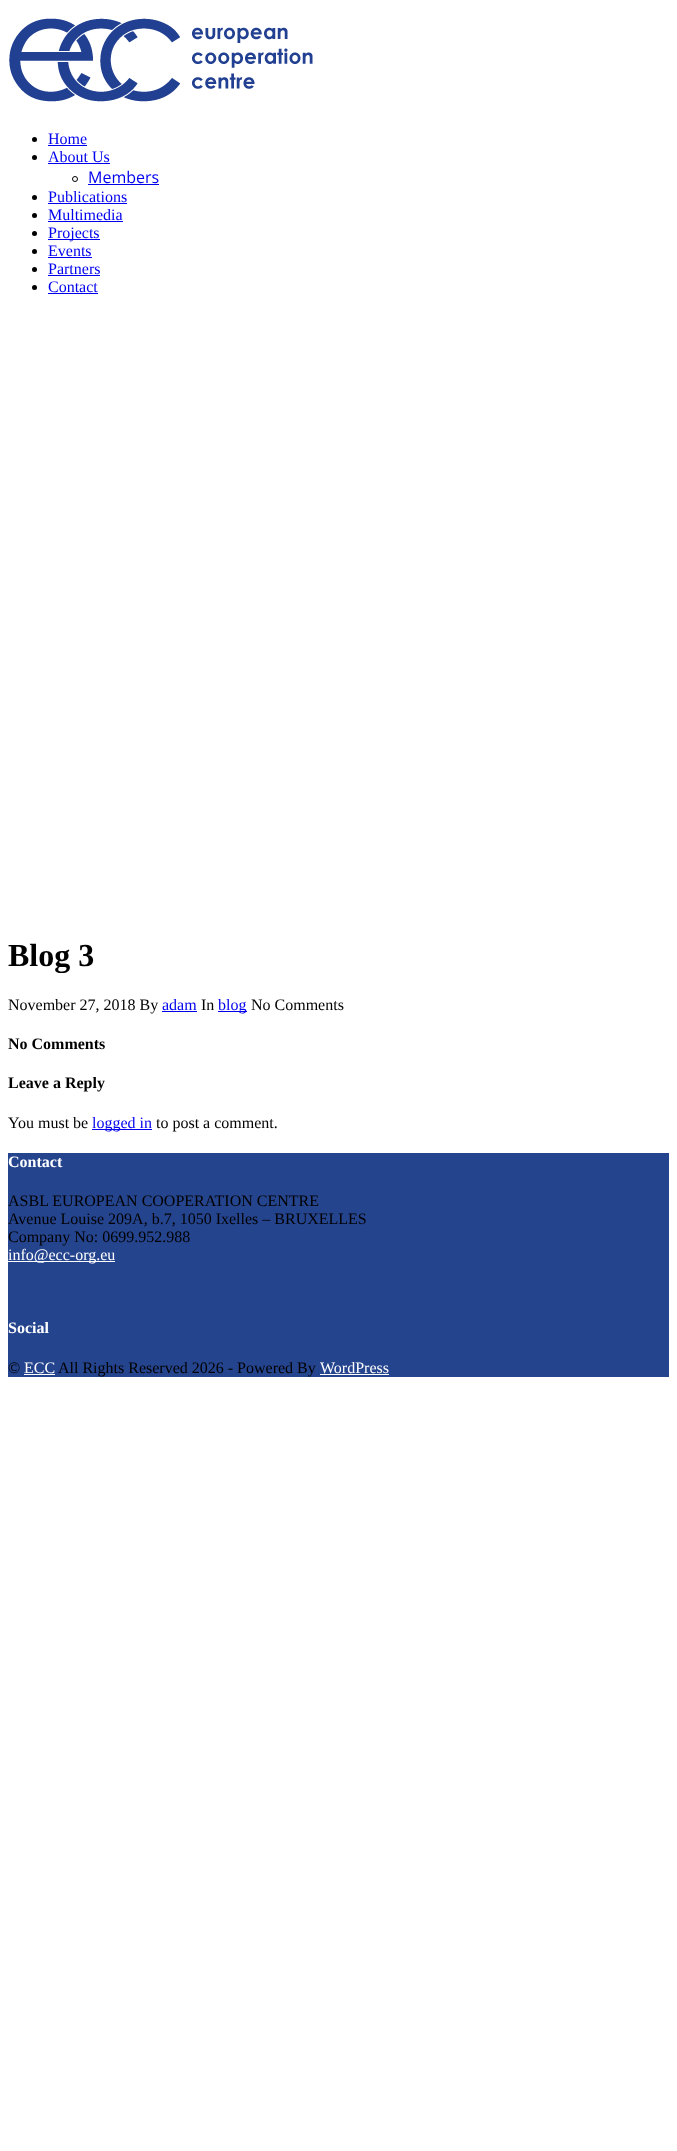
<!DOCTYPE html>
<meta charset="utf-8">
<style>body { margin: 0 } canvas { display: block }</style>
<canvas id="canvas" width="677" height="2151"></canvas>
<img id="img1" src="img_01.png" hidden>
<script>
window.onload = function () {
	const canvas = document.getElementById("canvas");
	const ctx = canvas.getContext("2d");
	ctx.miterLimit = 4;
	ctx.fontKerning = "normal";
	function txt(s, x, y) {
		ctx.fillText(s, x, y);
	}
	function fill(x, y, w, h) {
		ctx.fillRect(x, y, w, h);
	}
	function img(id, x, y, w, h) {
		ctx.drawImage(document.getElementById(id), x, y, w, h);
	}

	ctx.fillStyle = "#FFFFFF";
	fill(0, 0, 677, 2151);
	img("img1", 9, 18, 304, 84);
	ctx.fillStyle = "#000000";
	ctx.beginPath();
	ctx.arc(34.5, 139.5, 2.5, 0, Math.PI * 2);
	ctx.fill();
	ctx.fillStyle = "#0000EE";
	fill(48, 145, 39, 1);
	ctx.fillStyle = "#000000";
	ctx.beginPath();
	ctx.arc(34.5, 157.5, 2.5, 0, Math.PI * 2);
	ctx.fill();
	ctx.fillStyle = "#0000EE";
	fill(48, 163, 62, 1);
	ctx.beginPath();
	ctx.arc(75, 179, 2.5, 0, Math.PI * 2);
	ctx.strokeStyle = "#000000";
	ctx.stroke();
	fill(88, 184, 71, 1);
	ctx.fillStyle = "#000000";
	ctx.beginPath();
	ctx.arc(34.5, 197.5, 2.5, 0, Math.PI * 2);
	ctx.fill();
	ctx.fillStyle = "#0000EE";
	fill(48, 203, 79, 1);
	ctx.fillStyle = "#000000";
	ctx.beginPath();
	ctx.arc(34.5, 215.5, 2.5, 0, Math.PI * 2);
	ctx.fill();
	ctx.fillStyle = "#0000EE";
	fill(48, 221, 75, 1);
	ctx.fillStyle = "#000000";
	ctx.beginPath();
	ctx.arc(34.5, 233.5, 2.5, 0, Math.PI * 2);
	ctx.fill();
	ctx.fillStyle = "#0000EE";
	fill(48, 239, 52, 1);
	ctx.fillStyle = "#000000";
	ctx.beginPath();
	ctx.arc(34.5, 251.5, 2.5, 0, Math.PI * 2);
	ctx.fill();
	ctx.fillStyle = "#0000EE";
	fill(48, 257, 44, 1);
	ctx.fillStyle = "#000000";
	ctx.beginPath();
	ctx.arc(34.5, 269.5, 2.5, 0, Math.PI * 2);
	ctx.fill();
	ctx.fillStyle = "#0000EE";
	fill(48, 275, 52, 1);
	ctx.fillStyle = "#000000";
	ctx.beginPath();
	ctx.arc(34.5, 287.5, 2.5, 0, Math.PI * 2);
	ctx.fill();
	ctx.fillStyle = "#0000EE";
	fill(48, 293, 50, 1);
	fill(162, 1011, 35, 1);
	fill(218, 1011, 29, 1);
	fill(92, 1129, 60, 1);
	ctx.fillStyle = "#25448E";
	fill(8, 1153, 661, 224);
	ctx.fillStyle = "#FFFFFF";
	fill(8, 1261, 107, 1);
	fill(24, 1374, 31, 1);
	fill(320, 1374, 69, 1);
	ctx.font = "16px Liberation Serif";
	ctx.fillStyle = "#0000EE";
	txt("Home", 48, 144);
	txt("About Us", 48, 162);
	ctx.font = "16px Open Sans";
	txt("Members", 88, 183);
	ctx.font = "16px Liberation Serif";
	txt("Publications", 48, 202);
	txt("Multimedia", 48, 220);
	txt("Projects", 48, 238);
	txt("Events", 48, 256);
	txt("Partners", 48, 274);
	txt("Contact", 48, 292);
	ctx.font = "bold 32px Liberation Serif";
	ctx.fillStyle = "#000000";
	txt("Blog 3", 8, 966);
	ctx.font = "16px Liberation Serif";
	txt("November 27, 2018 By", 8, 1010);
	ctx.fillStyle = "#0000EE";
	txt("adam", 162, 1010);
	ctx.fillStyle = "#000000";
	txt("In", 201, 1010);
	ctx.fillStyle = "#0000EE";
	txt("blog", 218, 1010);
	ctx.fillStyle = "#000000";
	txt("No Comments", 251, 1010);
	ctx.font = "bold 16px Liberation Serif";
	txt("No Comments", 8, 1049);
	txt("Leave a Reply", 8, 1088);
	ctx.font = "16px Liberation Serif";
	txt("You must be", 8, 1128);
	ctx.fillStyle = "#0000EE";
	txt("logged in", 92, 1128);
	ctx.fillStyle = "#000000";
	txt("to post a comment.", 156, 1128);
	ctx.font = "bold 16px Liberation Serif";
	ctx.fillStyle = "#FFFFFF";
	txt("Contact", 8, 1167);
	ctx.font = "16px Liberation Serif";
	ctx.fillStyle = "#000000";
	txt("ASBL EUROPEAN COOPERATION CENTRE", 8, 1206);
	txt("Avenue Louise 209A, b.7, 1050 Ixelles – BRUXELLES", 8, 1224);
	txt("Company No: 0699.952.988", 8, 1242);
	ctx.fillStyle = "#FFFFFF";
	txt("info@ecc-org.eu", 8, 1260);
	ctx.font = "bold 16px Liberation Serif";
	txt("Social", 8, 1333);
	ctx.font = "16px Liberation Serif";
	ctx.fillStyle = "#000000";
	txt("©", 8, 1373);
	ctx.fillStyle = "#FFFFFF";
	txt("ECC", 24, 1373);
	ctx.fillStyle = "#000000";
	txt("All Rights Reserved 2026 - Powered By", 58, 1373);
	ctx.fillStyle = "#FFFFFF";
	txt("WordPress", 320, 1373);
};
</script>
